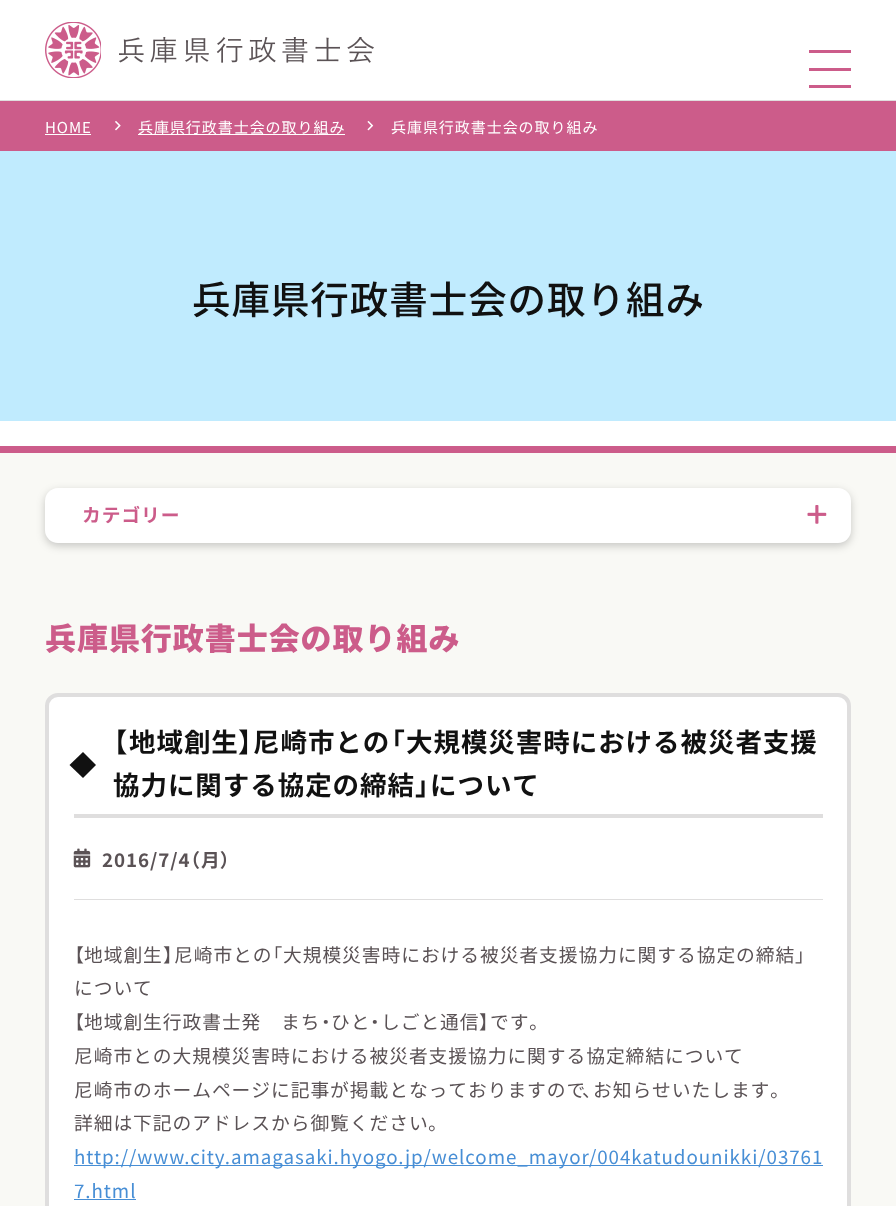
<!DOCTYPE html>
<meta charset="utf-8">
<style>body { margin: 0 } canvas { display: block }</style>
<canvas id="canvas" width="896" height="1206"></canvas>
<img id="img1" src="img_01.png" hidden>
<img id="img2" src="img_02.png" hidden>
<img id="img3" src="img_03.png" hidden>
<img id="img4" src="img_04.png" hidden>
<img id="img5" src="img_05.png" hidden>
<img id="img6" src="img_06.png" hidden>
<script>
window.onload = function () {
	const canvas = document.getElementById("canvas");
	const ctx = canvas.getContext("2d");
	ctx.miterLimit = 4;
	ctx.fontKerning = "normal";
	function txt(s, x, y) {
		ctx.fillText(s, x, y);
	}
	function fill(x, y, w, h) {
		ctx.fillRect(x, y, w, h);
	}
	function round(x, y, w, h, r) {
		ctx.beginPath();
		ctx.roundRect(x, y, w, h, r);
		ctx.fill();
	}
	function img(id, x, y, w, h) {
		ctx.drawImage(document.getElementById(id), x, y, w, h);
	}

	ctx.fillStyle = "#F9F9F5";
	fill(0, 0, 896, 1206);
	ctx.fillStyle = "#FFFFFF";
	fill(0, 0, 896, 100);
	ctx.fillStyle = "#DFDEDE";
	fill(0, 100, 896, 1);
	img("img1", 45, 22, 56, 56);
	img("img2", 119, 37, 255, 26);
	ctx.fillStyle = "#CC5C8A";
	fill(809, 50, 42, 3);
	fill(809, 68, 42, 3);
	fill(809, 85, 42, 3);
	fill(0, 101, 896, 50);
	ctx.fillStyle = "#FFFFFF";
	fill(45, 134, 46, 1);
	img("img3", 115, 121, 6, 10);
	fill(138, 134, 207, 1);
	img("img4", 367, 121, 7, 10);
	ctx.fillStyle = "#C0EBFE";
	fill(0, 151, 896, 270);
	ctx.fillStyle = "#FFFFFF";
	fill(0, 421, 896, 25);
	ctx.fillStyle = "#CC5C8A";
	fill(0, 446, 896, 7);
	ctx.fillStyle = "rgba(0, 0, 0, 0.2)";
	ctx.filter = "blur(4px)";
	ctx.beginPath();
	ctx.roundRect(45, 491, 806, 55, 13);
	ctx.fill();
	ctx.filter = "none";
	ctx.fillStyle = "#FFFFFF";
	round(45, 488, 806, 55, 13);
	img("img5", 807, 505, 20, 19);
	ctx.beginPath();
	ctx.roundRect(47, 695, 802, 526, 11);
	ctx.fill();
	ctx.strokeStyle = "#DFDEDE";
	ctx.lineWidth = 4;
	ctx.stroke();
	ctx.fillStyle = "#DFDEDE";
	fill(74, 899, 749, 1);
	fill(74, 814, 749, 4);
	ctx.fillStyle = "#111111";
	ctx.beginPath();
	ctx.moveTo(83, 752);
	ctx.lineTo(96, 765);
	ctx.lineTo(83, 778);
	ctx.lineTo(69.5, 765);
	ctx.closePath();
	ctx.fill();
	img("img6", 73, 848, 18, 20);
	ctx.fillStyle = "#478ED5";
	fill(74, 1165, 749, 1);
	fill(74, 1199, 62, 1);
	ctx.letterSpacing = "0.95px";
	ctx.font = "15px Noto Sans JP";
	ctx.fillStyle = "#FFFFFF";
	txt("HOME", 45, 133);
	txt("兵庫県行政書士会の取り組み", 138, 133);
	txt("兵庫県行政書士会の取り組み", 391, 133);
	ctx.font = "500 38.5px Noto Sans JP";
	ctx.fillStyle = "#111111";
	txt("兵庫県行政書士会の取り組み", 192, 314);
	ctx.font = "bold 18.75px Noto Sans JP";
	ctx.fillStyle = "#CC5C8A";
	txt("カテゴリー", 82, 522);
	ctx.font = "900 31px Noto Sans JP";
	txt("兵庫県行政書士会の取り組み", 45, 650);
	ctx.font = "bold 26.5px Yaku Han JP";
	ctx.fillStyle = "#111111";
	txt("【", 113, 752);
	ctx.font = "bold 26.5px Noto Sans JP";
	txt("地域創生", 129, 752);
	ctx.font = "bold 26.5px Yaku Han JP";
	txt("】", 238, 752);
	ctx.font = "bold 26.5px Noto Sans JP";
	txt("尼崎市との", 253, 752);
	ctx.font = "bold 26.5px Yaku Han JP";
	txt("「", 390, 752);
	ctx.font = "bold 26.5px Noto Sans JP";
	txt("大規模災害時における被災者支援", 406, 752);
	txt("協力に関する協定の締結", 113, 795);
	ctx.font = "bold 26.5px Yaku Han JP";
	txt("」", 415, 795);
	ctx.font = "bold 26.5px Noto Sans JP";
	txt("について", 430, 795);
	ctx.font = "bold 18.75px Noto Sans JP";
	ctx.fillStyle = "#5A5255";
	txt("2016/7/4", 102, 867);
	ctx.font = "bold 18.75px Yaku Han JP";
	txt("（", 190, 867);
	ctx.font = "bold 18.75px Noto Sans JP";
	txt("月", 201, 867);
	ctx.font = "bold 18.75px Yaku Han JP";
	txt("）", 220, 867);
	ctx.font = "18.75px Yaku Han JP";
	txt("【", 74, 962);
	ctx.font = "18.75px Noto Sans JP";
	txt("地域創生", 84, 962);
	ctx.font = "18.75px Yaku Han JP";
	txt("】", 163, 962);
	ctx.font = "18.75px Noto Sans JP";
	txt("尼崎市との", 174, 962);
	ctx.font = "18.75px Yaku Han JP";
	txt("「", 272, 962);
	ctx.font = "18.75px Noto Sans JP";
	txt("大規模災害時における被災者支援協力に関する協定の締結", 283, 962);
	ctx.font = "18.75px Yaku Han JP";
	txt("」", 795, 962);
	ctx.font = "18.75px Noto Sans JP";
	txt("について", 74, 995);
	ctx.font = "18.75px Yaku Han JP";
	txt("【", 74, 1029);
	ctx.font = "18.75px Noto Sans JP";
	txt("地域創生行政書士発　まち", 84, 1029);
	ctx.font = "18.75px Yaku Han JP";
	txt("・", 321, 1029);
	ctx.font = "18.75px Noto Sans JP";
	txt("ひと", 331, 1029);
	ctx.font = "18.75px Yaku Han JP";
	txt("・", 370, 1029);
	ctx.font = "18.75px Noto Sans JP";
	txt("しごと通信", 381, 1029);
	ctx.font = "18.75px Yaku Han JP";
	txt("】", 479, 1029);
	ctx.font = "18.75px Noto Sans JP";
	txt("です", 490, 1029);
	ctx.font = "18.75px Yaku Han JP";
	txt("。", 529, 1029);
	ctx.font = "18.75px Noto Sans JP";
	txt("尼崎市との大規模災害時における被災者支援協力に関する協定締結について", 74, 1063);
	txt("尼崎市のホームページに記事が掲載となっておりますので", 74, 1097);
	ctx.font = "18.75px Yaku Han JP";
	txt("、", 582, 1097);
	ctx.font = "18.75px Noto Sans JP";
	txt("お知らせいたします", 593, 1097);
	ctx.font = "18.75px Yaku Han JP";
	txt("。", 770, 1097);
	ctx.font = "18.75px Noto Sans JP";
	txt("詳細は下記のアドレスから御覧ください", 74, 1130);
	ctx.font = "18.75px Yaku Han JP";
	txt("。", 428, 1130);
	ctx.font = "18.75px Noto Sans JP";
	ctx.fillStyle = "#478ED5";
	txt("http://www.city.amagasaki.hyogo.jp/welcome_mayor/004katudounikki/03761", 74, 1164);
	txt("7.html", 74, 1198);
};
</script>
